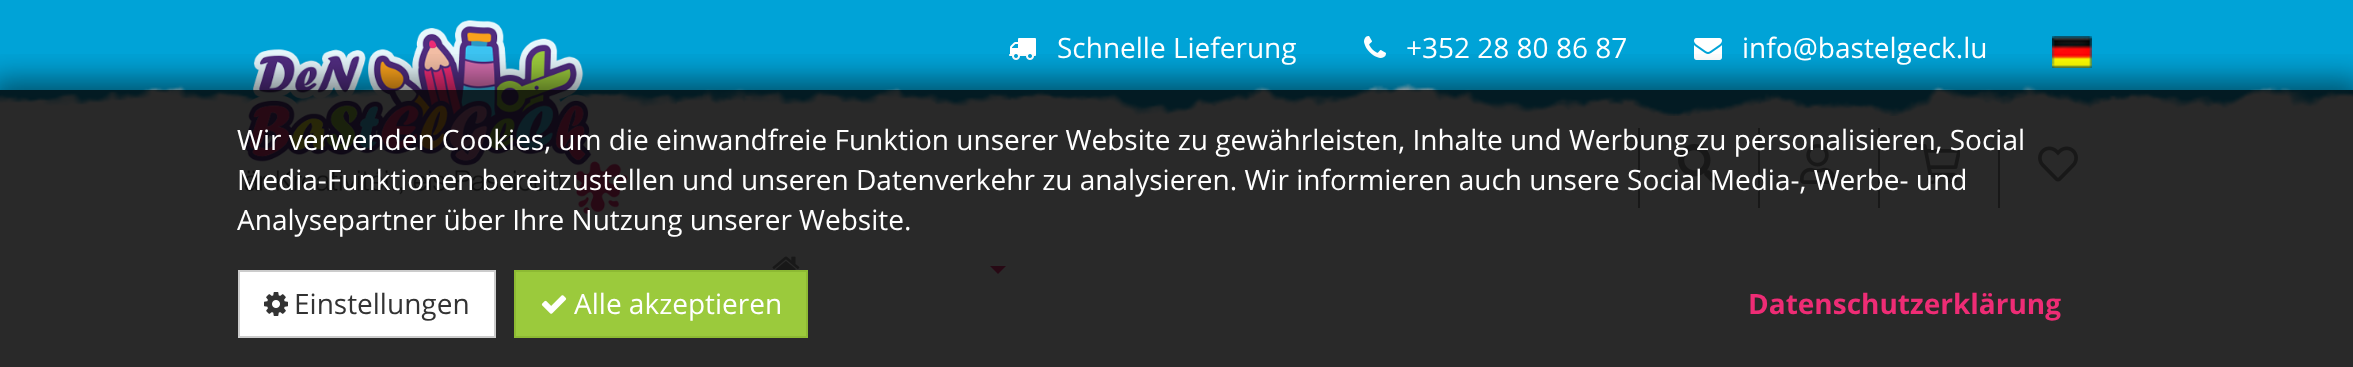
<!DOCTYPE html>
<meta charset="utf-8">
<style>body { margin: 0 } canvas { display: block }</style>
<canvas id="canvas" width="2353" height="367"></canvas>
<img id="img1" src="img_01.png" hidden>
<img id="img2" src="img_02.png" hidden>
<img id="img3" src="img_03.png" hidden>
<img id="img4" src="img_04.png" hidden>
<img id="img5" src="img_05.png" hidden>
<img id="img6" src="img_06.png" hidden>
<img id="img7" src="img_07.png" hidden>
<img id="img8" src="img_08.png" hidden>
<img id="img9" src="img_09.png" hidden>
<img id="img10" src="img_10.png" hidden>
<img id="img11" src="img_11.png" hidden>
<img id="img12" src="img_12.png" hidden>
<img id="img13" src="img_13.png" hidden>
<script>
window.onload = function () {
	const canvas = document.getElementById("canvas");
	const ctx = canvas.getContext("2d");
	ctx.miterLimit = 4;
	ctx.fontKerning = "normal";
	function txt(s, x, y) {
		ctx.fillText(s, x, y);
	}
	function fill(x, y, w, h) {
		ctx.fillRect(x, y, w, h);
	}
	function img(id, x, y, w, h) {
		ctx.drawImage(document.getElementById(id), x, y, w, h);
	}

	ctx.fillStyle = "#FFFFFF";
	fill(0, 0, 2353, 367);
	img("img1", 0, 76, 2353, 40);
	ctx.fillStyle = "#00A3D7";
	fill(0, 0, 2353, 76);
	img("img2", 244, 20, 384, 194);
	img("img3", 1009, 38, 27, 22);
	img("img4", 1364, 36, 22, 22);
	img("img5", 1694, 38, 28, 22);
	img("img6", 2052, 36, 40, 32);
	ctx.fillStyle = "#909090";
	fill(1638, 128, 2, 80);
	img("img7", 1678, 144, 40, 40);
	fill(1758, 128, 2, 80);
	img("img8", 1800, 144, 35, 40);
	fill(1878, 128, 2, 80);
	img("img9", 1916, 144, 44, 40);
	fill(1998, 128, 2, 80);
	img("img10", 2038, 146, 40, 36);
	img("img11", 772, 256, 28, 14);
	ctx.fillStyle = "#EE2C75";
	ctx.beginPath();
	ctx.moveTo(990, 266);
	ctx.lineTo(1006, 266);
	ctx.lineTo(998, 274);
	ctx.closePath();
	ctx.fill();
	ctx.save();
	ctx.beginPath();
	ctx.rect(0, 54, 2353, 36);
	ctx.clip();
	ctx.fillStyle = "rgba(0, 0, 0, 0.5)";
	ctx.filter = "blur(15px)";
	ctx.beginPath();
	ctx.rect(-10, 80, 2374, 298);
	ctx.fill();
	ctx.filter = "none";
	ctx.restore();
	ctx.fillStyle = "rgba(3, 3, 3, 0.85)";
	fill(0, 90, 2353, 277);
	ctx.fillStyle = "#FFFFFF";
	ctx.beginPath();
	ctx.rect(239, 271, 256, 66);
	ctx.fill();
	ctx.strokeStyle = "#CCCCCC";
	ctx.lineWidth = 2;
	ctx.stroke();
	img("img12", 264, 292, 24, 24);
	ctx.fillStyle = "#9BCA3C";
	ctx.beginPath();
	ctx.rect(515, 271, 292, 66);
	ctx.fill();
	ctx.strokeStyle = "#8DBA33";
	ctx.stroke();
	img("img13", 541, 295, 26, 19);
	ctx.font = "28px Open Sans";
	ctx.fillStyle = "#FFFFFF";
	txt("Schnelle Lieferung", 1057, 58);
	txt("+352 28 80 86 87", 1406, 58);
	txt("info@bastelgeck.lu", 1742, 58);
	txt("Wir verwenden Cookies, um die einwandfreie Funktion unserer Website zu gewährleisten, Inhalte und Werbung zu personalisieren, Social", 237, 150);
	txt("Media-Funktionen bereitzustellen und unseren Datenverkehr zu analysieren. Wir informieren auch unsere Social Media-, Werbe- und", 237, 190);
	txt("Analysepartner über Ihre Nutzung unserer Website.", 237, 230);
	ctx.fillStyle = "#333333";
	txt("Einstellungen", 294, 314);
	ctx.fillStyle = "#FFFFFF";
	txt("Alle akzeptieren", 574, 314);
	ctx.font = "bold 28px Open Sans";
	ctx.fillStyle = "#EE2C75";
	txt("Datenschutzerklärung", 1748, 314);
};
</script>
